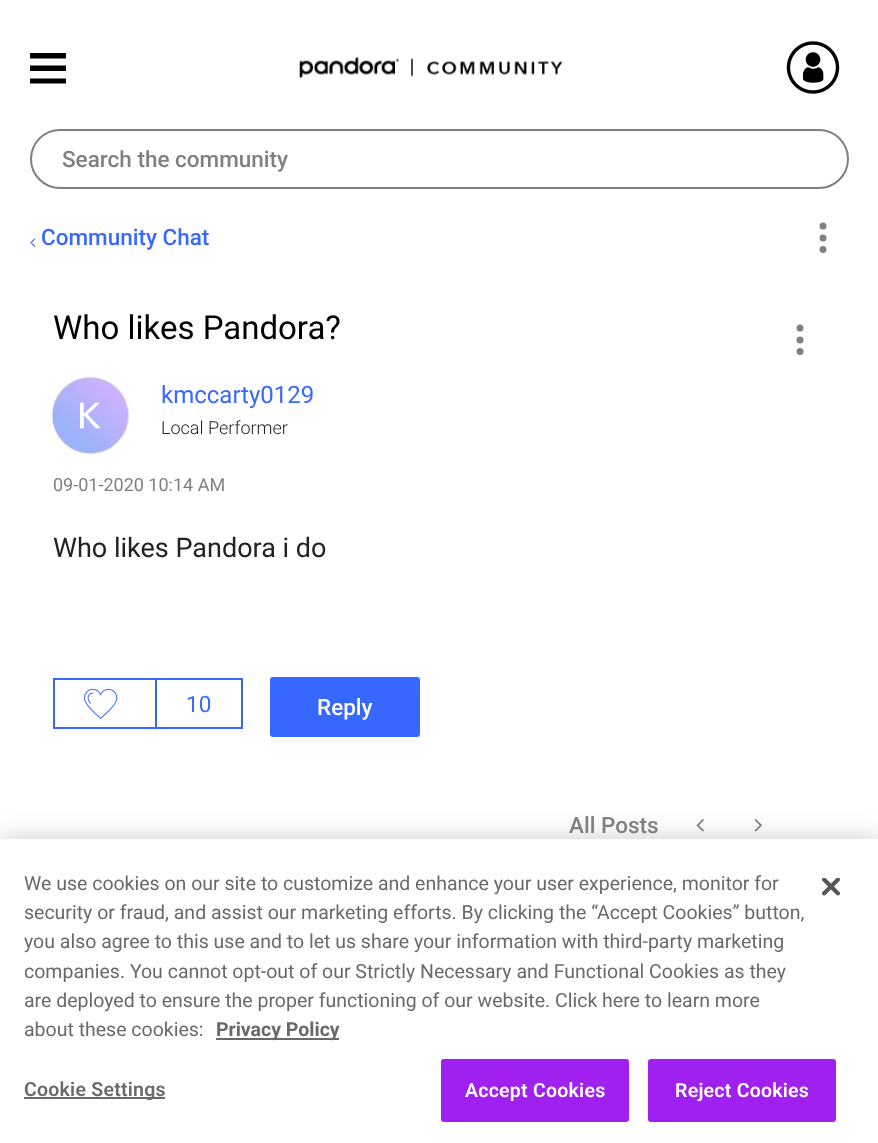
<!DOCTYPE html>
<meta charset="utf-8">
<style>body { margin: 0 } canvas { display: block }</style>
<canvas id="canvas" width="878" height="1143"></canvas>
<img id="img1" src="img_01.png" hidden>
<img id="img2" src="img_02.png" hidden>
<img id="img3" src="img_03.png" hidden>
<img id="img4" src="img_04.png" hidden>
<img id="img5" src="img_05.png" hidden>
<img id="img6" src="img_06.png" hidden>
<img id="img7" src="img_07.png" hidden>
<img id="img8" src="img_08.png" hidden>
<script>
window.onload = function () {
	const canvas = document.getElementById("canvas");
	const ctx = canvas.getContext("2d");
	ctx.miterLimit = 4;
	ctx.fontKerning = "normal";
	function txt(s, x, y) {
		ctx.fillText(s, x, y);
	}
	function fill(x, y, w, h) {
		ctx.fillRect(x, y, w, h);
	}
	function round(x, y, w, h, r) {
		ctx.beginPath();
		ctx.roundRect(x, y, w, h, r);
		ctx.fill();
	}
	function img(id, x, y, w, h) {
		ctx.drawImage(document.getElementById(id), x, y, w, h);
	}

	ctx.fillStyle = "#FFFFFF";
	fill(0, 0, 878, 1143);
	ctx.fillStyle = "#000000";
	ctx.beginPath();
	ctx.moveTo(30, 53);
	ctx.lineTo(66, 53);
	ctx.lineTo(66, 58.5);
	ctx.lineTo(30, 58.5);
	ctx.closePath();
	ctx.moveTo(30, 65.5);
	ctx.lineTo(66, 65.5);
	ctx.lineTo(66, 71);
	ctx.lineTo(30, 71);
	ctx.closePath();
	ctx.moveTo(30, 78.5);
	ctx.lineTo(66, 78.5);
	ctx.lineTo(66, 83.5);
	ctx.lineTo(30, 83.5);
	ctx.closePath();
	ctx.fill("evenodd");
	img("img1", 299, 57, 264, 21);
	img("img2", 786, 41, 54, 53);
	ctx.beginPath();
	ctx.roundRect(31, 130, 817, 58, 29);
	ctx.strokeStyle = "#808080";
	ctx.lineWidth = 2;
	ctx.stroke();
	img("img3", 30, 238, 6, 9);
	ctx.fillStyle = "#808080";
	ctx.beginPath();
	ctx.arc(823, 226, 3.5, 0, Math.PI * 2);
	ctx.fill();
	ctx.beginPath();
	ctx.arc(823, 238, 3.5, 0, Math.PI * 2);
	ctx.fill();
	ctx.beginPath();
	ctx.arc(823, 249.5, 3.5, 0, Math.PI * 2);
	ctx.fill();
	ctx.fillStyle = "#999999";
	ctx.filter = "blur(1px)";
	ctx.beginPath();
	ctx.roundRect(53, 378, 75, 75, 37.5);
	ctx.fill();
	ctx.filter = "none";
	img("img4", 52, 378, 76, 75);
	ctx.fillStyle = "#808080";
	ctx.beginPath();
	ctx.arc(800, 328, 3.5, 0, Math.PI * 2);
	ctx.fill();
	ctx.beginPath();
	ctx.arc(800, 340, 3.5, 0, Math.PI * 2);
	ctx.fill();
	ctx.beginPath();
	ctx.arc(800, 351.5, 3.5, 0, Math.PI * 2);
	ctx.fill();
	ctx.strokeStyle = "#3668FF";
	ctx.strokeRect(54, 679, 188, 49);
	img("img5", 84, 688, 34, 31);
	ctx.fillStyle = "#3668FF";
	fill(155, 680, 2, 48);
	round(270, 677, 150, 60, 3);
	img("img6", 696, 819, 8, 13);
	img("img7", 754, 819, 8, 13);
	ctx.fillStyle = "rgba(0, 0, 0, 0.2)";
	ctx.filter = "blur(13.5px)";
	ctx.beginPath();
	ctx.rect(0, 839, 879, 304);
	ctx.fill();
	ctx.filter = "none";
	ctx.fillStyle = "#FFFFFF";
	fill(0, 839, 878, 304);
	ctx.fillStyle = "#696969";
	fill(216, 1038, 123, 2);
	fill(24, 1097, 141, 2);
	ctx.fillStyle = "#A020F0";
	ctx.beginPath();
	ctx.roundRect(442, 1060, 186, 61, 2);
	ctx.fill();
	ctx.strokeStyle = "#A020F0";
	ctx.stroke();
	ctx.beginPath();
	ctx.roundRect(649, 1060, 186, 61, 2);
	ctx.fill();
	ctx.stroke();
	img("img8", 822, 878, 18, 18);
	ctx.font = "500 22.5px Roboto";
	ctx.fillStyle = "#808080";
	txt("Search the community", 62, 167);
	ctx.fillStyle = "#3868FF";
	txt("Community Chat", 41, 245);
	ctx.font = "33px Roboto";
	ctx.fillStyle = "#000000";
	txt("Who likes Pandora?", 53, 339);
	ctx.font = "24px Roboto";
	ctx.fillStyle = "#3868FF";
	txt("kmccarty0129", 161, 403);
	ctx.font = "300 18px Roboto";
	ctx.fillStyle = "#222222";
	txt("Local Performer", 161, 434);
	ctx.font = "18px Roboto";
	ctx.fillStyle = "#808080";
	txt("09-01-2020 10:14 AM", 53, 491);
	ctx.font = "27px Roboto";
	ctx.fillStyle = "#222222";
	txt("Who likes Pandora i do", 53, 557);
	ctx.font = "22.5px Roboto";
	ctx.fillStyle = "#3868FF";
	txt("10", 186, 712);
	ctx.font = "500 22.5px Roboto";
	ctx.fillStyle = "#FFFFFF";
	txt("Reply", 317, 715);
	ctx.fillStyle = "#808080";
	txt("All Posts", 569, 833);
	ctx.font = "19.5px Roboto";
	ctx.fillStyle = "#696969";
	txt("We use cookies on our site to customize and enhance your user experience, monitor for", 24, 890);
	txt("security or fraud, and assist our marketing efforts. By clicking the “Accept Cookies” button,", 24, 919);
	txt("you also agree to this use and to let us share your information with third-party marketing", 24, 948);
	txt("companies. You cannot opt-out of our Strictly Necessary and Functional Cookies as they", 24, 978);
	txt("are deployed to ensure the proper functioning of our website. Click here to learn more", 24, 1007);
	txt("about these cookies:", 24, 1036);
	ctx.font = "bold 19.5px Roboto";
	txt("Privacy Policy", 216, 1036);
	ctx.letterSpacing = "0.25px";
	ctx.font = "600 19.5px Roboto";
	txt("Cookie Settings", 24, 1096);
	ctx.fillStyle = "#FFFFFF";
	txt("Accept Cookies", 465, 1097);
	txt("Reject Cookies", 675, 1097);
};
</script>
